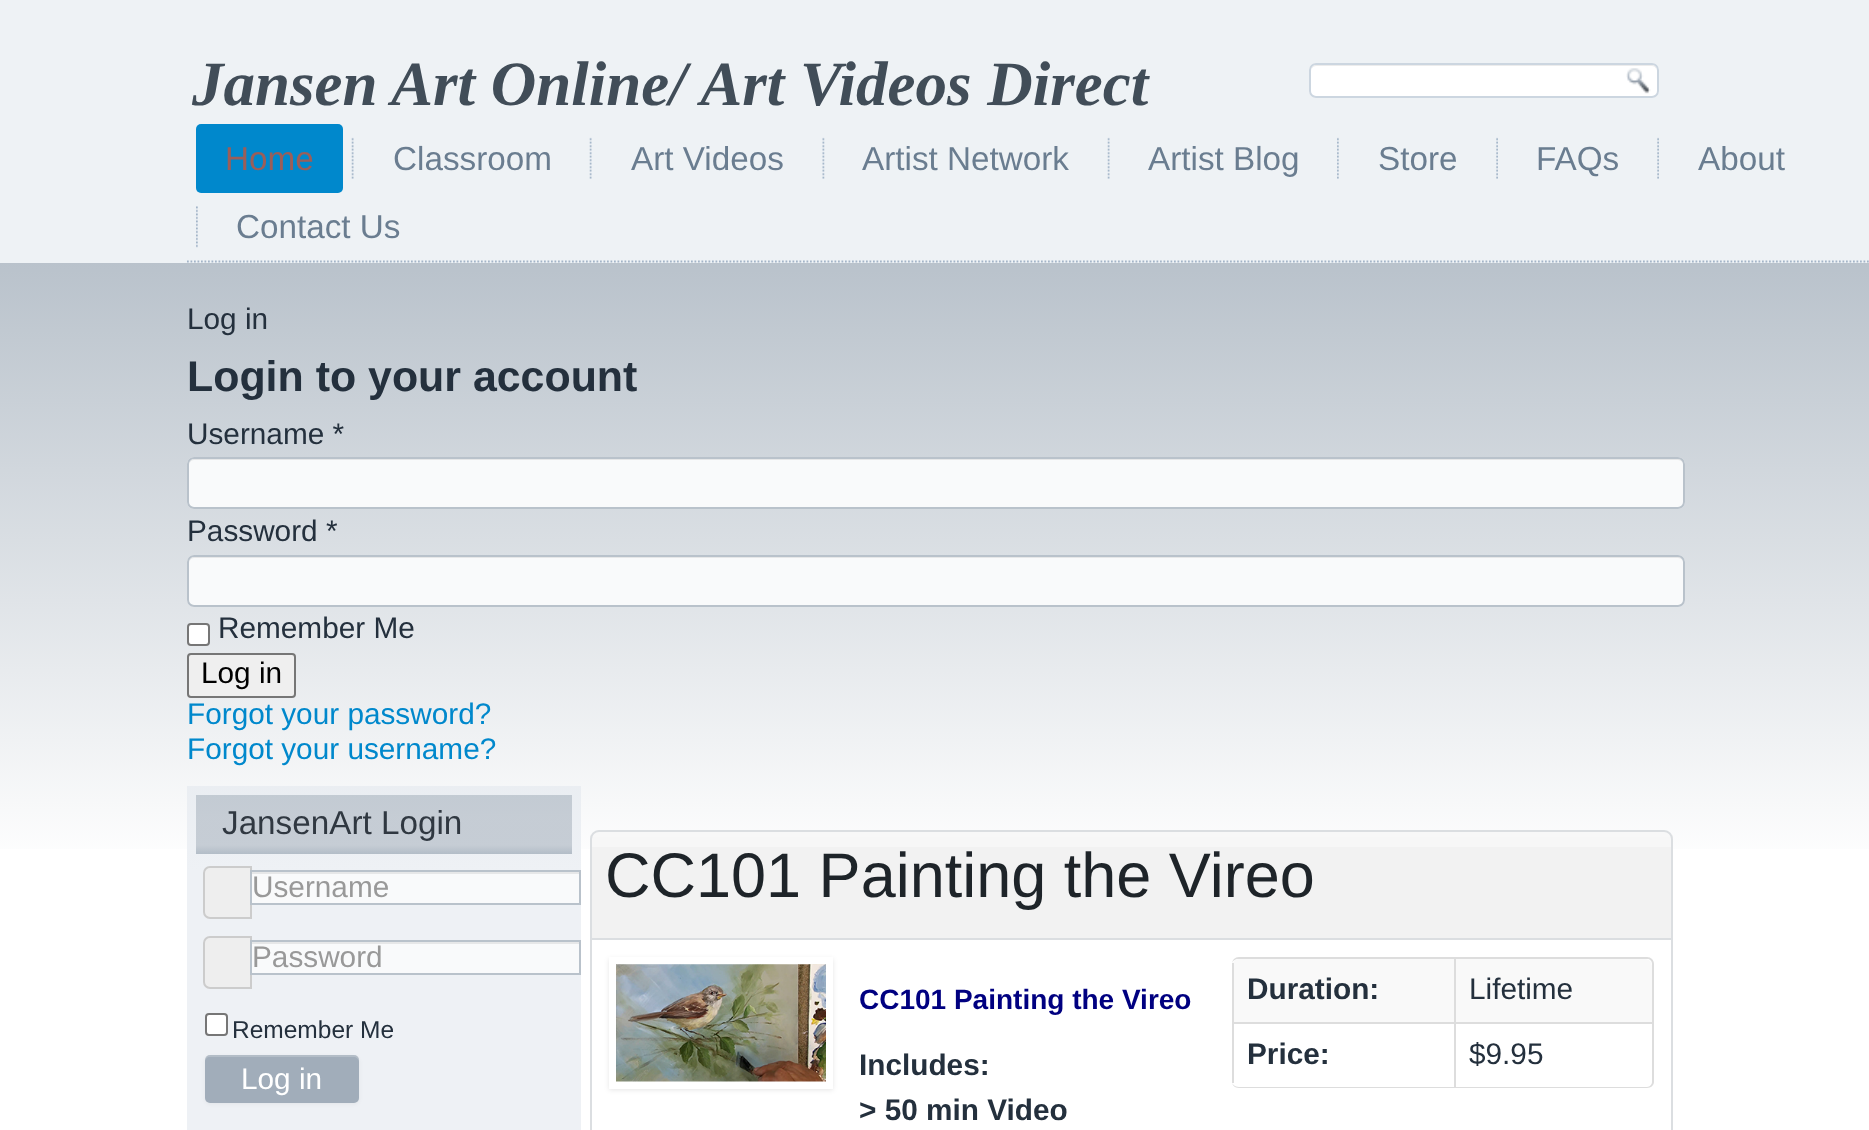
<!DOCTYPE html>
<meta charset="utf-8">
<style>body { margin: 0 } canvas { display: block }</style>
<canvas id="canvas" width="1869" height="1130"></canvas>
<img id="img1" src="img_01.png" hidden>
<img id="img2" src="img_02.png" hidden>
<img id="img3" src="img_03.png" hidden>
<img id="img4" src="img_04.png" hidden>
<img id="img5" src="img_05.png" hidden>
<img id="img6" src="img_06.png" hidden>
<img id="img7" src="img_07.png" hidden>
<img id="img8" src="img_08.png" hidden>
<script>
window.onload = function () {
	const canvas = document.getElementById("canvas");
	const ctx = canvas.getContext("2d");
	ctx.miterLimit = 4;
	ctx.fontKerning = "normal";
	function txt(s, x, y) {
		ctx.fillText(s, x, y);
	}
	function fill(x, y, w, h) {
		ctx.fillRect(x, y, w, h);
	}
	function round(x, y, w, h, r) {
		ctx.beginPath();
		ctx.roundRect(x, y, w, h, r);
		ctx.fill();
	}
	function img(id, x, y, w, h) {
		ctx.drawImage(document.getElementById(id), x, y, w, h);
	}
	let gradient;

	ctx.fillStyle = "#FFFFFF";
	fill(0, 0, 1869, 1130);
	gradient = ctx.createLinearGradient(935, 0, 935, 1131);
	gradient.addColorStop(0, "#9BA8B5");
	gradient.addColorStop(0.77, "#FFFFFF");
	ctx.fillStyle = gradient;
	fill(0, 263, 1869, 586);
	gradient = ctx.createLinearGradient(935, 0, 935, 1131);
	gradient.addColorStop(0, "#C6CED7");
	gradient.addColorStop(0.77, "#EEF1F5");
	ctx.fillStyle = gradient;
	fill(187, 786, 394, 344);
	ctx.fillStyle = "#EEF2F5";
	fill(0, 0, 1869, 263);
	ctx.fillStyle = "#FFFFFF";
	round(1309, 63, 350, 35, 7);
	ctx.fillStyle = "#ECECEC";
	ctx.beginPath();
	ctx.moveTo(1316, 66);
	ctx.lineTo(1652, 66);
	ctx.bezierCurveTo(1655, 66, 1657, 69, 1657, 72);
	ctx.bezierCurveTo(1657, 69, 1656, 65, 1652, 65);
	ctx.lineTo(1316, 65);
	ctx.bezierCurveTo(1312, 65, 1311, 69, 1311, 72);
	ctx.bezierCurveTo(1311, 69, 1313, 66, 1316, 66);
	ctx.closePath();
	ctx.fill();
	ctx.beginPath();
	ctx.roundRect(1310, 64, 348, 33, 6);
	ctx.strokeStyle = "#CCD6E0";
	ctx.lineWidth = 2;
	ctx.stroke();
	img("img1", 1626, 68, 25, 26);
	ctx.beginPath();
	ctx.moveTo(187, 261.5);
	ctx.lineTo(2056, 261.5);
	ctx.strokeStyle = "#A3B4C8";
	ctx.lineWidth = 1.8;
	ctx.setLineDash([1.75, 1.75]);
	ctx.stroke();
	ctx.fillStyle = "#0088CC";
	round(196, 124, 147, 69, 5);
	img("img2", 351, 137, 3, 42);
	img("img2", 589, 137, 3, 42);
	img("img3", 822, 137, 3, 42);
	img("img2", 1107, 137, 3, 42);
	img("img4", 1337, 137, 2, 42);
	img("img5", 1496, 137, 2, 42);
	img("img5", 1657, 137, 2, 42);
	img("img6", 196, 206, 2, 42);
	ctx.fillStyle = "#F9FAFB";
	round(187, 457, 1498, 52, 7);
	ctx.fillStyle = "#E6E7E8";
	ctx.beginPath();
	ctx.moveTo(194, 460);
	ctx.lineTo(1678, 460);
	ctx.bezierCurveTo(1681, 460, 1684, 463, 1684, 466);
	ctx.bezierCurveTo(1684, 463, 1683, 459, 1679, 459);
	ctx.lineTo(194, 459);
	ctx.bezierCurveTo(190, 459, 189, 463, 189, 466);
	ctx.bezierCurveTo(189, 463, 191, 460, 194, 460);
	ctx.closePath();
	ctx.fill();
	ctx.beginPath();
	ctx.roundRect(188, 458, 1496, 50, 6);
	ctx.strokeStyle = "#B9C2CB";
	ctx.lineWidth = 2;
	ctx.setLineDash([]);
	ctx.stroke();
	ctx.fillStyle = "#F9FAFB";
	round(187, 555, 1498, 52, 7);
	ctx.fillStyle = "#E6E7E8";
	ctx.beginPath();
	ctx.moveTo(194, 558);
	ctx.lineTo(1678, 558);
	ctx.bezierCurveTo(1681, 558, 1684, 561, 1684, 564);
	ctx.bezierCurveTo(1684, 561, 1683, 557, 1679, 557);
	ctx.lineTo(194, 557);
	ctx.bezierCurveTo(190, 557, 189, 561, 189, 564);
	ctx.bezierCurveTo(189, 561, 191, 558, 194, 558);
	ctx.closePath();
	ctx.fill();
	ctx.beginPath();
	ctx.roundRect(188, 556, 1496, 50, 6);
	ctx.stroke();
	ctx.fillStyle = "#FFFFFF";
	ctx.beginPath();
	ctx.roundRect(188, 624, 21, 21, 3);
	ctx.fill();
	ctx.strokeStyle = "#767676";
	ctx.stroke();
	ctx.fillStyle = "#EFEFEF";
	ctx.beginPath();
	ctx.roundRect(188, 654, 107, 43, 3);
	ctx.fill();
	ctx.stroke();
	gradient = ctx.createLinearGradient(384, 795, 384, 854);
	gradient.addColorStop(0, "rgba(185, 194, 203, 0.8)");
	gradient.addColorStop(0.4, "rgba(188, 196, 205, 0.8)");
	gradient.addColorStop(0.85, "rgba(188, 196, 205, 0.8)");
	gradient.addColorStop(1, "rgba(164, 176, 188, 0.8)");
	ctx.fillStyle = gradient;
	fill(196, 795, 376, 59);
	ctx.fillStyle = "#EEEEEE";
	ctx.beginPath();
	ctx.roundRect(204, 867, 47, 51, [6, 0, 0, 6]);
	ctx.fill();
	ctx.strokeStyle = "#CCCCCC";
	ctx.stroke();
	ctx.fillStyle = "#F9FAFB";
	fill(252, 874, 327, 29);
	ctx.fillStyle = "#E6E7E8";
	fill(252, 872, 327, 2);
	ctx.strokeStyle = "#B9C2CB";
	ctx.strokeRect(251, 871, 329, 33);
	ctx.fillStyle = "#EEEEEE";
	ctx.beginPath();
	ctx.roundRect(204, 937, 47, 51, [6, 0, 0, 6]);
	ctx.fill();
	ctx.strokeStyle = "#CCCCCC";
	ctx.stroke();
	ctx.fillStyle = "#F9FAFB";
	fill(252, 944, 327, 29);
	ctx.fillStyle = "#E6E7E8";
	fill(252, 942, 327, 2);
	ctx.strokeStyle = "#B9C2CB";
	ctx.strokeRect(251, 941, 329, 33);
	ctx.fillStyle = "#FFFFFF";
	ctx.beginPath();
	ctx.roundRect(206, 1014, 21, 21, 3);
	ctx.fill();
	ctx.strokeStyle = "#767676";
	ctx.stroke();
	ctx.fillStyle = "rgba(0, 0, 0, 0.05)";
	ctx.filter = "blur(2px)";
	ctx.beginPath();
	ctx.roundRect(205, 1057, 154, 47, 5);
	ctx.fill();
	ctx.filter = "none";
	ctx.fillStyle = "#A1ADBA";
	round(205, 1055, 154, 48, 5);
	ctx.fillStyle = "rgba(255, 255, 255, 0.2)";
	ctx.beginPath();
	ctx.moveTo(210, 1057);
	ctx.lineTo(354, 1057);
	ctx.bezierCurveTo(356, 1057, 359, 1059, 359, 1062);
	ctx.lineTo(359, 1060);
	ctx.bezierCurveTo(359, 1057, 357, 1055, 354, 1055);
	ctx.lineTo(210, 1055);
	ctx.bezierCurveTo(207, 1055, 205, 1057, 205, 1060);
	ctx.lineTo(205, 1062);
	ctx.bezierCurveTo(205, 1059, 207, 1057, 210, 1057);
	ctx.closePath();
	ctx.fill();
	ctx.fillStyle = "#F2F2F2";
	ctx.beginPath();
	ctx.roundRect(590, 830, 1083, 110, [9, 9, 0, 0]);
	ctx.fill();
	img("img7", 590, 831, 1083, 16);
	ctx.beginPath();
	ctx.roundRect(591, 831, 1081, 108, [8, 8, 0, 0]);
	ctx.strokeStyle = "#DBDEE1";
	ctx.stroke();
	ctx.fillStyle = "#DBDEE1";
	ctx.beginPath();
	ctx.moveTo(590, 940);
	ctx.lineTo(1673, 940);
	ctx.lineTo(1673, 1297);
	ctx.bezierCurveTo(1673, 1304, 1668, 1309, 1661, 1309);
	ctx.lineTo(602, 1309);
	ctx.bezierCurveTo(595, 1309, 590, 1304, 590, 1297);
	ctx.closePath();
	ctx.moveTo(592, 940);
	ctx.lineTo(1671, 940);
	ctx.lineTo(1671, 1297);
	ctx.bezierCurveTo(1671, 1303, 1667, 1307, 1661, 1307);
	ctx.lineTo(602, 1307);
	ctx.bezierCurveTo(596, 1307, 592, 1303, 592, 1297);
	ctx.closePath();
	ctx.fill("evenodd");
	ctx.fillStyle = "rgba(0, 0, 0, 0.1)";
	ctx.filter = "blur(2.5px)";
	ctx.beginPath();
	ctx.rect(609, 959, 224, 131);
	ctx.fill();
	ctx.filter = "none";
	ctx.fillStyle = "#FFFFFF";
	fill(609, 957, 224, 132);
	img("img8", 616, 964, 210, 118);
	ctx.fillStyle = "#DDDDDD";
	ctx.beginPath();
	ctx.moveTo(1239, 957);
	ctx.lineTo(1647, 957);
	ctx.bezierCurveTo(1651, 957, 1654, 960, 1654, 964);
	ctx.lineTo(1654, 1082);
	ctx.bezierCurveTo(1654, 1085, 1651, 1088, 1647, 1088);
	ctx.lineTo(1239, 1088);
	ctx.bezierCurveTo(1235, 1088, 1232, 1085, 1232, 1082);
	ctx.lineTo(1232, 964);
	ctx.bezierCurveTo(1232, 960, 1235, 957, 1239, 957);
	ctx.closePath();
	ctx.moveTo(1239, 959);
	ctx.lineTo(1647, 959);
	ctx.bezierCurveTo(1650, 959, 1652, 961, 1652, 964);
	ctx.lineTo(1652, 1082);
	ctx.bezierCurveTo(1652, 1084, 1650, 1087, 1647, 1087);
	ctx.lineTo(1239, 1087);
	ctx.bezierCurveTo(1235, 1087, 1232, 1084, 1232, 1082);
	ctx.lineTo(1232, 964);
	ctx.bezierCurveTo(1232, 961, 1235, 959, 1239, 959);
	ctx.closePath();
	ctx.fill("evenodd");
	ctx.fillStyle = "#F9F9F9";
	ctx.beginPath();
	ctx.roundRect(1232, 959, 222, 63, [7, 0, 0, 0]);
	ctx.fill();
	ctx.fillStyle = "#DDDDDD";
	fill(1232, 963, 2, 59);
	ctx.fillStyle = "#F9F9F9";
	ctx.beginPath();
	ctx.roundRect(1454, 959, 198, 63, [0, 7, 0, 0]);
	ctx.fill();
	ctx.fillStyle = "#DDDDDD";
	fill(1454, 959, 2, 63);
	fill(1232, 1022, 420, 2);
	fill(1232, 1022, 2, 61);
	fill(1454, 1022, 2, 65);
	ctx.font = "italic bold 63px Liberation Serif";
	ctx.fillStyle = "#414D58";
	txt("Jansen Art Online/ Art Videos Direct", 192, 105);
	ctx.font = "33.25px Liberation Sans";
	ctx.fillStyle = "#9B5E59";
	txt("Home", 225, 170);
	ctx.fillStyle = "#6A7D90";
	txt("Classroom", 393, 170);
	txt("Art Videos", 631, 170);
	txt("Artist Network", 862, 170);
	txt("Artist Blog", 1148, 170);
	txt("Store", 1378, 170);
	txt("FAQs", 1536, 170);
	txt("About", 1698, 170);
	txt("Contact Us", 236, 238);
	ctx.font = "29.75px Liberation Sans";
	ctx.fillStyle = "#24303D";
	txt("Log in", 187, 329);
	ctx.font = "bold 42.9px Liberation Sans";
	txt("Login to your account", 187, 391);
	ctx.font = "29.75px Liberation Sans";
	txt("Username *", 187, 444);
	txt("Password *", 187, 541);
	txt("Remember Me", 218, 638);
	ctx.fillStyle = "#000000";
	txt("Log in", 201, 683);
	ctx.fillStyle = "#0088CC";
	txt("Forgot your password?", 187, 724);
	txt("Forgot your username?", 187, 759);
	ctx.font = "33.25px Liberation Sans";
	ctx.fillStyle = "#303841";
	txt("JansenArt Login", 222, 834);
	ctx.font = "29.75px Liberation Sans";
	ctx.fillStyle = "#999999";
	txt("Username", 252, 897);
	txt("Password", 252, 967);
	ctx.font = "24.5px Liberation Sans";
	ctx.fillStyle = "#24303D";
	txt("Remember Me", 232, 1038);
	ctx.font = "29.75px Liberation Sans";
	ctx.fillStyle = "#FFFFFF";
	txt("Log in", 241, 1089);
	ctx.font = "63px Liberation Sans";
	ctx.fillStyle = "#1E2429";
	txt("CC101 Painting the Vireo", 605, 897);
	ctx.font = "bold 28px Liberation Sans";
	ctx.fillStyle = "#000080";
	txt("CC101 Painting the Vireo", 859, 1009);
	ctx.font = "bold 29.75px Liberation Sans";
	ctx.fillStyle = "#24303D";
	txt("Includes:", 859, 1075);
	txt("> 50 min Video", 859, 1120);
	txt("Duration:", 1247, 999);
	ctx.font = "29.75px Liberation Sans";
	txt("Lifetime", 1469, 999);
	ctx.font = "bold 29.75px Liberation Sans";
	txt("Price:", 1247, 1064);
	ctx.font = "29.75px Liberation Sans";
	txt("$9.95", 1469, 1064);
};
</script>
